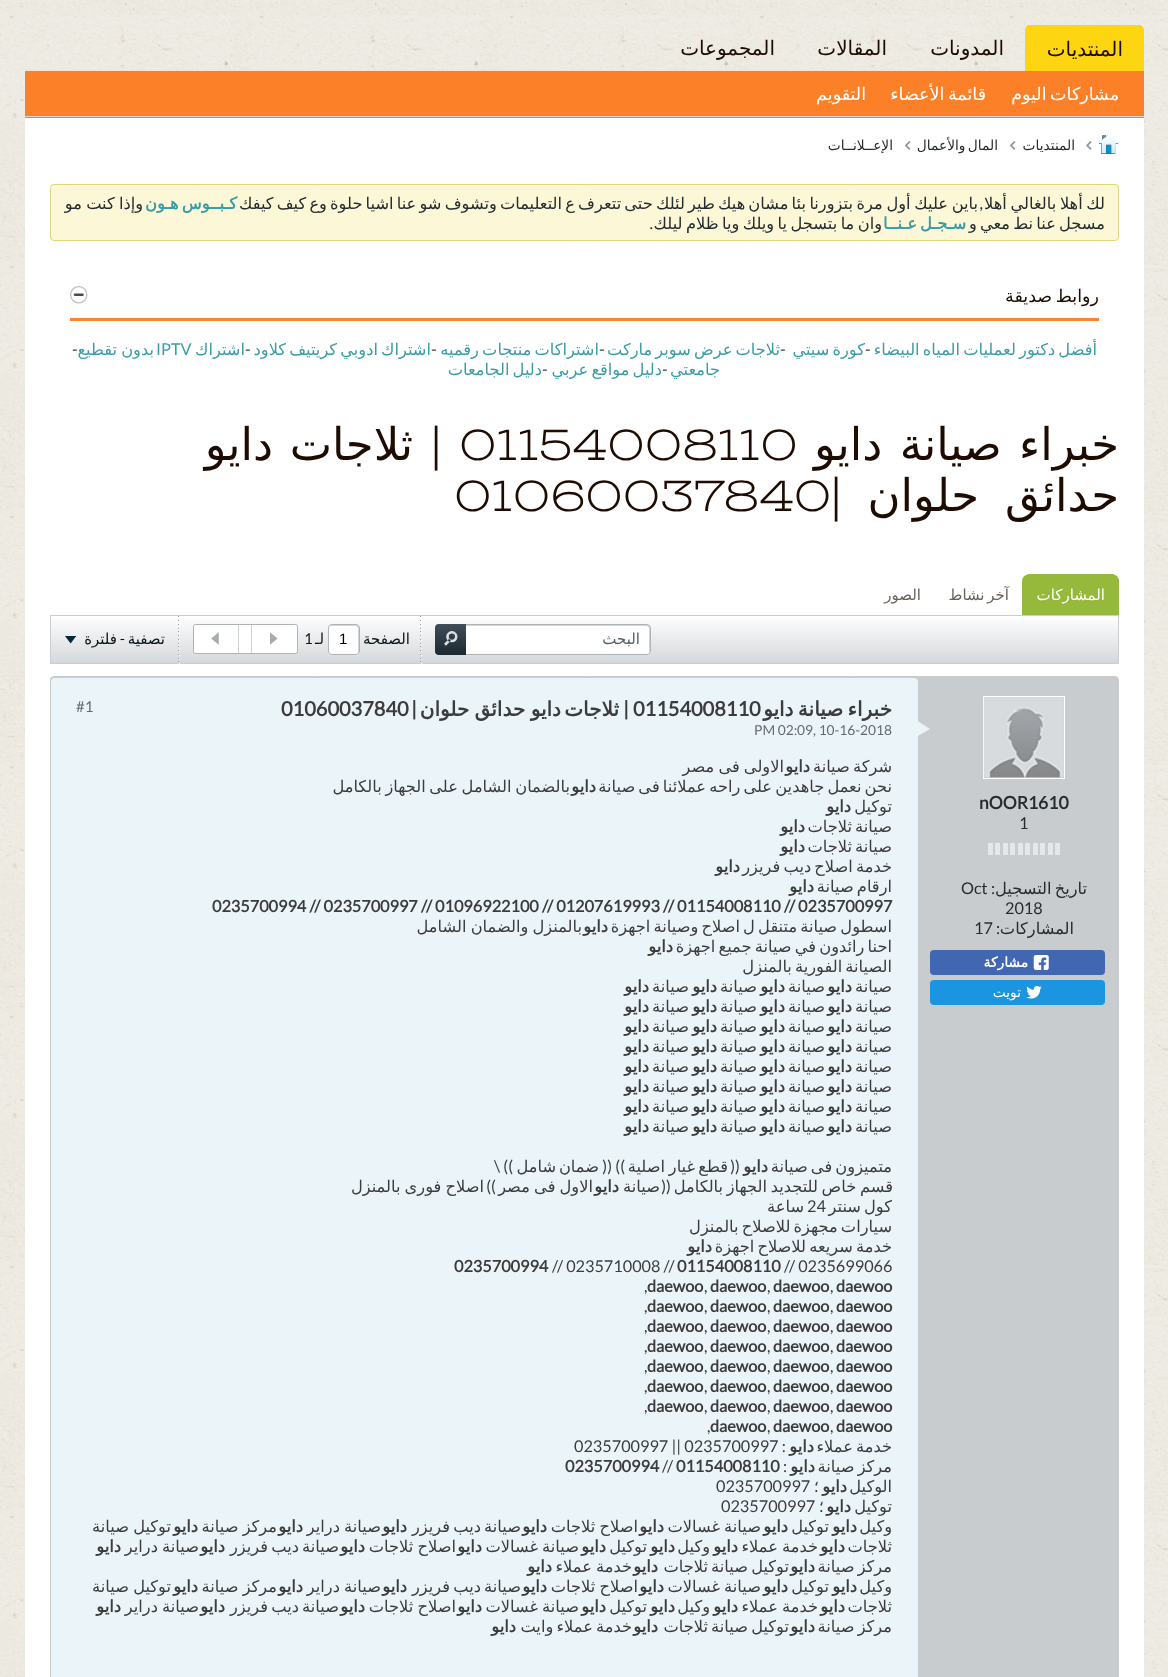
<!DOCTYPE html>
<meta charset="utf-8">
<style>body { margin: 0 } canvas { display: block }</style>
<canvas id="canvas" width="1168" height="1677"></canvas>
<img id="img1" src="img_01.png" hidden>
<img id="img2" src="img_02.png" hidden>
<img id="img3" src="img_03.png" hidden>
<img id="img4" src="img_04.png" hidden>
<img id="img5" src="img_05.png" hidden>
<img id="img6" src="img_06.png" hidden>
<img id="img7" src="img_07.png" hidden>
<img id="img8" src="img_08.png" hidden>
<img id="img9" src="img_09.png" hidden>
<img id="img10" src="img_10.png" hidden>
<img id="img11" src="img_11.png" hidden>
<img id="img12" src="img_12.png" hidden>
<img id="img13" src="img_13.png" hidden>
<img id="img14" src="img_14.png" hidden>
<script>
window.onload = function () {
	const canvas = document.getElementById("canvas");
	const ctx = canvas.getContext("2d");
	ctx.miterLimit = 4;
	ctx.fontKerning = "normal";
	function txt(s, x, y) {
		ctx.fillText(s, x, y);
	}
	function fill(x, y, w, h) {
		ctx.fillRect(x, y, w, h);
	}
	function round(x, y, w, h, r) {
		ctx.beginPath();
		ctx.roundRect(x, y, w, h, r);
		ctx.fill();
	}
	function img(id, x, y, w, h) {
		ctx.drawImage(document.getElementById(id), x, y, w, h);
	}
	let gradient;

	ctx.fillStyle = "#FFFFFF";
	fill(0, 0, 1168, 1677);
	img("img1", 0, 0, 1168, 1677);
	ctx.fillStyle = "#EBE7DC";
	fill(25, 70, 1000, 1);
	ctx.fillStyle = "#FED511";
	ctx.beginPath();
	ctx.roundRect(1025, 25, 119, 46, [5, 5, 0, 0]);
	ctx.fill();
	fill(1028, 25, 113, 1);
	ctx.fillStyle = "#FC8027";
	fill(25, 71, 1119, 47);
	ctx.fillStyle = "#D3D5D6";
	fill(25, 116, 1119, 1);
	ctx.fillStyle = "#FFFFFF";
	fill(25, 118, 1119, 1559);
	img("img2", 1099, 135, 20, 19);
	img("img3", 1086, 141, 6, 9);
	img("img4", 1010, 141, 6, 9);
	img("img4", 905, 141, 6, 9);
	ctx.fillStyle = "#FCF7D7";
	ctx.beginPath();
	ctx.roundRect(50.5, 184.5, 1068, 56, 3.5);
	ctx.fill();
	ctx.strokeStyle = "#E1D47E";
	ctx.stroke();
	img("img5", 70, 286, 18, 18);
	ctx.fillStyle = "#FD852F";
	fill(70, 318, 1029, 3);
	ctx.fillStyle = "#96B83B";
	ctx.beginPath();
	ctx.roundRect(1023, 574, 96, 41, [8, 8, 0, 0]);
	ctx.fill();
	ctx.beginPath();
	ctx.moveTo(1030, 574);
	ctx.lineTo(1111, 574);
	ctx.bezierCurveTo(1115, 574, 1119, 577, 1119, 581);
	ctx.lineTo(1119, 615);
	ctx.lineTo(1022, 615);
	ctx.lineTo(1022, 581);
	ctx.bezierCurveTo(1022, 577, 1026, 574, 1030, 574);
	ctx.closePath();
	ctx.moveTo(1030, 575);
	ctx.lineTo(1111, 575);
	ctx.bezierCurveTo(1115, 575, 1118, 578, 1118, 581);
	ctx.lineTo(1118, 615);
	ctx.lineTo(1024, 615);
	ctx.lineTo(1024, 581);
	ctx.bezierCurveTo(1024, 578, 1027, 575, 1030, 575);
	ctx.closePath();
	ctx.fill("evenodd");
	gradient = ctx.createLinearGradient(584, 616, 584, 663);
	gradient.addColorStop(0, "#FEFEFF");
	gradient.addColorStop(1, "#D5D8DA");
	ctx.fillStyle = gradient;
	fill(51, 618, 1067, 45);
	ctx.strokeStyle = "#C9CED2";
	ctx.strokeRect(50.5, 615.5, 1068, 48);
	ctx.fillStyle = "#FFFFFF";
	round(435, 624, 216, 31, 4);
	ctx.fillStyle = "#D5D5D5";
	ctx.beginPath();
	ctx.moveTo(438, 626);
	ctx.lineTo(646, 626);
	ctx.bezierCurveTo(648, 626, 649, 627, 649, 629);
	ctx.lineTo(649, 654);
	ctx.bezierCurveTo(649, 653, 650, 652, 650, 652);
	ctx.lineTo(650, 628);
	ctx.bezierCurveTo(650, 626, 649, 625, 648, 625);
	ctx.lineTo(438, 625);
	ctx.bezierCurveTo(438, 625, 437, 626, 436, 626);
	ctx.closePath();
	ctx.fill();
	ctx.beginPath();
	ctx.roundRect(435.5, 624.5, 215, 30, 3.5);
	ctx.strokeStyle = "#AEB3B6";
	ctx.stroke();
	gradient = ctx.createLinearGradient(451, 624, 451, 655);
	gradient.addColorStop(0, "#404D5A");
	gradient.addColorStop(1, "#1C2931");
	ctx.fillStyle = gradient;
	ctx.beginPath();
	ctx.roundRect(435, 624, 31, 31, [4, 0, 0, 4]);
	ctx.fill();
	img("img6", 444, 631, 14, 15);
	img("img7", 420, 616, 1, 46);
	img("img8", 421, 621, 1, 43);
	ctx.fillStyle = "#FFFFFF";
	round(328, 624, 32, 31, 4);
	ctx.fillStyle = "#D5D5D5";
	ctx.beginPath();
	ctx.moveTo(330, 626);
	ctx.lineTo(355, 626);
	ctx.bezierCurveTo(356, 626, 358, 627, 358, 629);
	ctx.lineTo(358, 652);
	ctx.bezierCurveTo(358, 653, 357.5, 653.5, 357.5, 654);
	ctx.bezierCurveTo(358.5, 653.5, 359, 652.5, 359, 651.5);
	ctx.lineTo(359, 627.5);
	ctx.bezierCurveTo(359, 626, 358, 625, 356.5, 625);
	ctx.lineTo(331.5, 625);
	ctx.bezierCurveTo(330.5, 625, 330, 625.5, 329.5, 626);
	ctx.closePath();
	ctx.fill();
	ctx.beginPath();
	ctx.roundRect(328.5, 624.5, 31, 30, 3.5);
	ctx.stroke();
	ctx.fillStyle = "#FFFFFF";
	ctx.beginPath();
	ctx.roundRect(193.5, 624.5, 104, 29, 2);
	ctx.fill();
	ctx.stroke();
	ctx.fillStyle = "#CDD1D4";
	fill(251, 625, 1, 28);
	img("img9", 270, 632, 8, 13);
	fill(238, 625, 1, 28);
	img("img10", 211, 632, 8, 13);
	img("img7", 178, 616, 1, 46);
	img("img8", 179, 621, 1, 43);
	img("img11", 65, 636, 11, 8);
	ctx.fillStyle = "#C8CCCE";
	ctx.beginPath();
	ctx.roundRect(50.5, 676.5, 1068, 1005, 3.5);
	ctx.fill();
	ctx.strokeStyle = "#C8CCCE";
	ctx.stroke();
	ctx.strokeStyle = "#FFFFFF";
	ctx.strokeRect(983.5, 696.5, 81, 82);
	img("img12", 983, 697, 81, 81);
	ctx.fillStyle = "#E5E8E9";
	fill(1055, 843, 5, 12);
	fill(1048, 843, 5, 12);
	fill(1040, 843, 5, 12);
	fill(1033, 843, 5, 12);
	fill(1025, 843, 5, 12);
	fill(1018, 843, 5, 12);
	fill(1010, 843, 5, 12);
	fill(1003, 843, 5, 12);
	fill(995, 843, 5, 12);
	fill(988, 843, 5, 12);
	ctx.fillStyle = "#4267B2";
	round(930, 950, 175, 25, 4);
	img("img13", 1033, 955, 16, 15);
	ctx.fillStyle = "#1B95E0";
	round(930, 980, 175, 25, 4);
	img("img14", 1026, 986, 16, 13);
	ctx.fillStyle = "#EBF4F9";
	round(51, 678, 867, 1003, 4);
	ctx.beginPath();
	ctx.moveTo(917.5, 736);
	ctx.lineTo(917.5, 721);
	ctx.lineTo(930, 729);
	ctx.closePath();
	ctx.fill();
	ctx.direction = "rtl";
	ctx.font = "20px DejaVu Sans";
	ctx.fillStyle = "#1E0B02";
	txt("المنتديات", 1123, 56);
	txt("المدونات", 1004, 55);
	txt("المقالات", 887, 55);
	txt("المجموعات", 775, 55);
	ctx.wordSpacing = "-2px";
	ctx.font = "17.5px DejaVu Sans";
	ctx.fillStyle = "#FFFFFF";
	txt("مشاركات اليوم", 1119, 100);
	txt("قائمة الأعضاء", 986, 100);
	ctx.wordSpacing = "0px";
	txt("التقويم", 866, 100);
	ctx.font = "13.75px DejaVu Sans";
	ctx.fillStyle = "#252C2F";
	txt("المنتديات", 1075, 150);
	ctx.wordSpacing = "-2px";
	txt("المال والأعمال", 998, 150);
	ctx.wordSpacing = "0px";
	txt("الإعــلانــات", 893, 150);
	ctx.wordSpacing = "-1.5px";
	ctx.font = "16.25px DejaVu Sans";
	txt("لك أهلا بالغالي أهلا", 1105, 209);
	ctx.wordSpacing = "0px";
	ctx.font = "16.25px Lato";
	txt(",", 983, 209);
	ctx.wordSpacing = "-1.5px";
	ctx.font = "16.25px DejaVu Sans";
	txt("باين عليك أول مرة بتزورنا", 978, 209);
	ctx.wordSpacing = "-2px";
	txt("بئا مشان هيك طير لئلك حتى تتعرف ع التعليمات وتشوف شو عنا اشيا حلوة وع كيف كيفك", 806, 209);
	ctx.font = "bold 16.25px DejaVu Sans";
	ctx.fillStyle = "#3A9DA6";
	txt("كـبــوس هـون", 237, 209);
	ctx.wordSpacing = "-1px";
	ctx.font = "16.25px DejaVu Sans";
	ctx.fillStyle = "#252C2F";
	txt("وإذا كنت مو", 143, 209);
	ctx.wordSpacing = "-2px";
	txt("مسجل عنا نط معي و", 1105, 229);
	ctx.font = "bold 16.25px DejaVu Sans";
	ctx.fillStyle = "#3A9DA6";
	txt("سـجـل عـنــا", 966, 229);
	ctx.wordSpacing = "-1.75px";
	ctx.font = "16.25px DejaVu Sans";
	ctx.fillStyle = "#252C2F";
	txt("وان ما بتسجل يا ويلك ويا ظلام ليلك", 882, 229);
	ctx.wordSpacing = "0px";
	ctx.font = "16.25px Lato";
	txt(".", 653, 229);
	ctx.wordSpacing = "-2px";
	ctx.font = "17.5px DejaVu Sans";
	ctx.fillStyle = "#1E0B02";
	txt("روابط صديقة", 1099, 302);
	ctx.font = "16.25px DejaVu Sans";
	ctx.fillStyle = "#3A9DA6";
	txt("أفضل دكتور لعمليات المياه البيضاء", 1097, 355);
	ctx.wordSpacing = "0px";
	ctx.direction = "ltr";
	ctx.font = "16.25px Lato";
	ctx.fillStyle = "#3C3C3C";
	txt("-", 865, 355);
	ctx.wordSpacing = "-2px";
	ctx.direction = "rtl";
	ctx.font = "16.25px DejaVu Sans";
	ctx.fillStyle = "#3A9DA6";
	txt("كورة سيتي", 865, 355);
	ctx.wordSpacing = "0px";
	ctx.direction = "ltr";
	ctx.font = "16.25px Lato";
	ctx.fillStyle = "#3C3C3C";
	txt("-", 780, 355);
	ctx.wordSpacing = "-2px";
	ctx.direction = "rtl";
	ctx.font = "16.25px DejaVu Sans";
	ctx.fillStyle = "#3A9DA6";
	txt("ثلاجات عرض سوبر ماركت", 780, 355);
	ctx.wordSpacing = "0px";
	ctx.direction = "ltr";
	ctx.font = "16.25px Lato";
	ctx.fillStyle = "#3C3C3C";
	txt("-", 599, 355);
	ctx.wordSpacing = "-2px";
	ctx.direction = "rtl";
	ctx.font = "16.25px DejaVu Sans";
	ctx.fillStyle = "#3A9DA6";
	txt("اشتراكات منتجات رقميه", 599, 355);
	ctx.wordSpacing = "0px";
	ctx.direction = "ltr";
	ctx.font = "16.25px Lato";
	ctx.fillStyle = "#3C3C3C";
	txt("-", 431, 355);
	ctx.wordSpacing = "-2px";
	ctx.direction = "rtl";
	ctx.font = "16.25px DejaVu Sans";
	ctx.fillStyle = "#3A9DA6";
	txt("اشتراك ادوبي كريتيف كلاود", 431, 355);
	ctx.wordSpacing = "0px";
	ctx.direction = "ltr";
	ctx.font = "16.25px Lato";
	ctx.fillStyle = "#3C3C3C";
	txt("-", 245, 355);
	ctx.direction = "rtl";
	ctx.font = "16.25px DejaVu Sans";
	ctx.fillStyle = "#3A9DA6";
	txt("اشتراك", 245, 355);
	ctx.direction = "ltr";
	ctx.font = "16.25px Lato";
	txt("IPTV", 156, 355);
	ctx.wordSpacing = "-1px";
	ctx.direction = "rtl";
	ctx.font = "16.25px DejaVu Sans";
	txt("بدون تقطيع", 154, 355);
	ctx.wordSpacing = "0px";
	ctx.direction = "ltr";
	ctx.font = "16.25px Lato";
	ctx.fillStyle = "#3C3C3C";
	txt("-", 72, 355);
	ctx.direction = "rtl";
	ctx.font = "16.25px DejaVu Sans";
	ctx.fillStyle = "#3A9DA6";
	txt("جامعتي", 720, 375);
	ctx.direction = "ltr";
	ctx.font = "16.25px Lato";
	ctx.fillStyle = "#3C3C3C";
	txt("-", 662, 375);
	ctx.wordSpacing = "-2px";
	ctx.direction = "rtl";
	ctx.font = "16.25px DejaVu Sans";
	ctx.fillStyle = "#3A9DA6";
	txt("دليل مواقع عربي", 662, 375);
	ctx.wordSpacing = "0px";
	ctx.direction = "ltr";
	ctx.font = "16.25px Lato";
	ctx.fillStyle = "#3C3C3C";
	txt("-", 542, 375);
	ctx.wordSpacing = "-2px";
	ctx.direction = "rtl";
	ctx.font = "16.25px DejaVu Sans";
	ctx.fillStyle = "#3A9DA6";
	txt("دليل الجامعات", 542, 375);
	ctx.wordSpacing = "3px";
	ctx.font = "45px DejaVu Sans";
	ctx.fillStyle = "#1E0B02";
	txt("خبراء صيانة دايو", 1119, 460);
	ctx.wordSpacing = "0px";
	ctx.direction = "ltr";
	ctx.font = "45px Stint Ultra Expanded";
	txt("01154008110", 459, 460);
	ctx.direction = "rtl";
	txt("|", 442, 460);
	ctx.font = "45px DejaVu Sans";
	txt("ثلاجات", 413, 460);
	txt("دايو", 273, 460);
	txt("حدائق", 1119, 511);
	txt("حلوان", 979, 511);
	ctx.font = "45px Stint Ultra Expanded";
	txt("|", 842, 511);
	ctx.direction = "ltr";
	txt("01060037840", 454, 511);
	ctx.direction = "rtl";
	ctx.font = "15px DejaVu Sans";
	ctx.fillStyle = "#FFFFFF";
	txt("المشاركات", 1105, 600);
	ctx.wordSpacing = "-2px";
	ctx.fillStyle = "#69615A";
	txt("آخر نشاط", 1009, 600);
	ctx.wordSpacing = "0px";
	txt("الصور", 921, 600);
	ctx.fillStyle = "#556065";
	txt("البحث", 640, 644);
	ctx.fillStyle = "#09161B";
	txt("الصفحة", 410, 644);
	ctx.direction = "ltr";
	ctx.font = "15px Liberation Sans";
	ctx.fillStyle = "#000000";
	txt("1", 339, 644);
	ctx.direction = "rtl";
	ctx.font = "15px DejaVu Sans";
	ctx.fillStyle = "#09161B";
	txt("لـ", 324, 644);
	ctx.direction = "ltr";
	ctx.font = "15px Lato";
	txt("1", 304, 644);
	ctx.direction = "rtl";
	ctx.font = "15px DejaVu Sans";
	txt("تصفية", 165, 644);
	ctx.font = "15px Lato";
	txt("-", 125, 644);
	ctx.font = "15px DejaVu Sans";
	txt("فلترة", 117, 644);
	ctx.direction = "ltr";
	ctx.font = "bold 17.5px Lato";
	ctx.fillStyle = "#252C2F";
	txt("nOOR1610", 979, 809);
	ctx.font = "16.25px Lato";
	txt("1", 1019, 829);
	ctx.wordSpacing = "-2px";
	ctx.direction = "rtl";
	ctx.font = "16.25px DejaVu Sans";
	txt("تاريخ التسجيل", 1087, 894);
	ctx.wordSpacing = "0px";
	ctx.font = "16.25px Lato";
	txt(":", 995, 894);
	ctx.direction = "ltr";
	txt("Oct", 961, 894);
	txt("2018", 1005, 914);
	ctx.direction = "rtl";
	ctx.font = "16.25px DejaVu Sans";
	txt("المشاركات", 1074, 934);
	ctx.font = "16.25px Lato";
	txt(":", 1000, 934);
	ctx.direction = "ltr";
	txt("17", 974, 934);
	ctx.direction = "rtl";
	ctx.font = "bold 13.75px DejaVu Sans";
	ctx.fillStyle = "#FFFFFF";
	txt("مشاركة", 1028, 967);
	ctx.font = "13.75px DejaVu Sans";
	txt("تويت", 1021, 997);
	ctx.wordSpacing = "-2px";
	ctx.font = "bold 20px DejaVu Sans";
	ctx.fillStyle = "#3C3C3C";
	txt("خبراء صيانة دايو", 892, 716);
	ctx.wordSpacing = "0px";
	ctx.direction = "ltr";
	ctx.font = "bold 20px Lato";
	txt("01154008110", 633, 716);
	ctx.direction = "rtl";
	txt("|", 629, 716);
	ctx.font = "bold 20px DejaVu Sans";
	txt("ثلاجات", 619, 716);
	ctx.wordSpacing = "-1px";
	txt("دايو حدائق حلوان", 561, 716);
	ctx.wordSpacing = "0px";
	ctx.font = "bold 20px Lato";
	txt("|", 417, 716);
	ctx.direction = "ltr";
	txt("01060037840", 281, 716);
	ctx.font = "13.75px Lato";
	ctx.fillStyle = "#656A6D";
	txt("PM 02:09, 10-16-2018", 754, 735);
	ctx.font = "15px Lato";
	txt("#1", 76, 712);
	ctx.wordSpacing = "-2px";
	ctx.direction = "rtl";
	ctx.font = "16.25px DejaVu Sans";
	ctx.fillStyle = "#3C3C3C";
	txt("شركة صيانة", 892, 772);
	ctx.wordSpacing = "0px";
	ctx.font = "bold 16.25px DejaVu Sans";
	txt("دايو", 810, 772);
	ctx.wordSpacing = "-1px";
	ctx.font = "16.25px DejaVu Sans";
	txt("الاولى فى مصر", 784, 772);
	ctx.wordSpacing = "-2px";
	txt("نحن نعمل جاهدين على راحه عملائنا فى صيانة", 892, 792);
	ctx.wordSpacing = "0px";
	ctx.font = "bold 16.25px DejaVu Sans";
	txt("دايو", 596, 792);
	ctx.wordSpacing = "-1.5px";
	ctx.font = "16.25px DejaVu Sans";
	txt("بالضمان الشامل على الجهاز بالكامل", 570, 792);
	ctx.wordSpacing = "0px";
	txt("توكيل", 892, 812);
	ctx.font = "bold 16.25px DejaVu Sans";
	txt("دايو", 851, 812);
	ctx.wordSpacing = "-2px";
	ctx.font = "16.25px DejaVu Sans";
	txt("صيانة ثلاجات", 892, 832);
	ctx.wordSpacing = "0px";
	ctx.font = "bold 16.25px DejaVu Sans";
	txt("دايو", 805, 832);
	ctx.wordSpacing = "-2px";
	ctx.font = "16.25px DejaVu Sans";
	txt("صيانة ثلاجات", 892, 852);
	ctx.wordSpacing = "0px";
	ctx.font = "bold 16.25px DejaVu Sans";
	txt("دايو", 805, 852);
	ctx.wordSpacing = "-2px";
	ctx.font = "16.25px DejaVu Sans";
	txt("خدمة اصلاح ديب فريزر", 892, 872);
	ctx.wordSpacing = "0px";
	ctx.font = "bold 16.25px DejaVu Sans";
	txt("دايو", 740, 872);
	ctx.wordSpacing = "-2px";
	ctx.font = "16.25px DejaVu Sans";
	txt("ارقام صيانة", 892, 892);
	ctx.wordSpacing = "0px";
	ctx.font = "bold 16.25px DejaVu Sans";
	txt("دايو", 814, 892);
	ctx.direction = "ltr";
	ctx.font = "bold 16.25px Lato";
	txt("// 01207619993 // 01154008110 // 0235700997", 542, 912);
	txt("0235700994 // 0235700997 // 01096922100", 212, 912);
	ctx.wordSpacing = "-2px";
	ctx.direction = "rtl";
	ctx.font = "16.25px DejaVu Sans";
	txt("اسطول صيانة متنقل ل اصلاح وصيانة اجهزة", 892, 932);
	ctx.wordSpacing = "0px";
	ctx.font = "bold 16.25px DejaVu Sans";
	txt("دايو", 608, 932);
	ctx.wordSpacing = "-1px";
	ctx.font = "16.25px DejaVu Sans";
	txt("بالمنزل والضمان الشامل", 582, 932);
	ctx.wordSpacing = "-2px";
	txt("احنا رائدون في صيانة جميع اجهزة", 892, 952);
	ctx.wordSpacing = "0px";
	ctx.font = "bold 16.25px DejaVu Sans";
	txt("دايو", 673, 952);
	ctx.wordSpacing = "-2px";
	ctx.font = "16.25px DejaVu Sans";
	txt("الصيانة الفورية بالمنزل", 892, 972);
	ctx.wordSpacing = "0px";
	txt("صيانة", 892, 992);
	ctx.font = "bold 16.25px DejaVu Sans";
	txt("دايو", 852, 992);
	ctx.font = "16.25px DejaVu Sans";
	txt("صيانة", 825, 992);
	ctx.font = "bold 16.25px DejaVu Sans";
	txt("دايو", 785, 992);
	ctx.font = "16.25px DejaVu Sans";
	txt("صيانة", 757, 992);
	ctx.font = "bold 16.25px DejaVu Sans";
	txt("دايو", 717, 992);
	ctx.font = "16.25px DejaVu Sans";
	txt("صيانة", 689, 992);
	ctx.font = "bold 16.25px DejaVu Sans";
	txt("دايو", 649, 992);
	ctx.font = "16.25px DejaVu Sans";
	txt("صيانة", 892, 1012);
	ctx.font = "bold 16.25px DejaVu Sans";
	txt("دايو", 852, 1012);
	ctx.font = "16.25px DejaVu Sans";
	txt("صيانة", 825, 1012);
	ctx.font = "bold 16.25px DejaVu Sans";
	txt("دايو", 785, 1012);
	ctx.font = "16.25px DejaVu Sans";
	txt("صيانة", 757, 1012);
	ctx.font = "bold 16.25px DejaVu Sans";
	txt("دايو", 717, 1012);
	ctx.font = "16.25px DejaVu Sans";
	txt("صيانة", 689, 1012);
	ctx.font = "bold 16.25px DejaVu Sans";
	txt("دايو", 649, 1012);
	ctx.font = "16.25px DejaVu Sans";
	txt("صيانة", 892, 1032);
	ctx.font = "bold 16.25px DejaVu Sans";
	txt("دايو", 852, 1032);
	ctx.font = "16.25px DejaVu Sans";
	txt("صيانة", 825, 1032);
	ctx.font = "bold 16.25px DejaVu Sans";
	txt("دايو", 785, 1032);
	ctx.font = "16.25px DejaVu Sans";
	txt("صيانة", 757, 1032);
	ctx.font = "bold 16.25px DejaVu Sans";
	txt("دايو", 717, 1032);
	ctx.font = "16.25px DejaVu Sans";
	txt("صيانة", 689, 1032);
	ctx.font = "bold 16.25px DejaVu Sans";
	txt("دايو", 649, 1032);
	ctx.font = "16.25px DejaVu Sans";
	txt("صيانة", 892, 1052);
	ctx.font = "bold 16.25px DejaVu Sans";
	txt("دايو", 852, 1052);
	ctx.font = "16.25px DejaVu Sans";
	txt("صيانة", 825, 1052);
	ctx.font = "bold 16.25px DejaVu Sans";
	txt("دايو", 785, 1052);
	ctx.font = "16.25px DejaVu Sans";
	txt("صيانة", 757, 1052);
	ctx.font = "bold 16.25px DejaVu Sans";
	txt("دايو", 717, 1052);
	ctx.font = "16.25px DejaVu Sans";
	txt("صيانة", 689, 1052);
	ctx.font = "bold 16.25px DejaVu Sans";
	txt("دايو", 649, 1052);
	ctx.font = "16.25px DejaVu Sans";
	txt("صيانة", 892, 1072);
	ctx.font = "bold 16.25px DejaVu Sans";
	txt("دايو", 852, 1072);
	ctx.font = "16.25px DejaVu Sans";
	txt("صيانة", 825, 1072);
	ctx.font = "bold 16.25px DejaVu Sans";
	txt("دايو", 785, 1072);
	ctx.font = "16.25px DejaVu Sans";
	txt("صيانة", 757, 1072);
	ctx.font = "bold 16.25px DejaVu Sans";
	txt("دايو", 717, 1072);
	ctx.font = "16.25px DejaVu Sans";
	txt("صيانة", 689, 1072);
	ctx.font = "bold 16.25px DejaVu Sans";
	txt("دايو", 649, 1072);
	ctx.font = "16.25px DejaVu Sans";
	txt("صيانة", 892, 1092);
	ctx.font = "bold 16.25px DejaVu Sans";
	txt("دايو", 852, 1092);
	ctx.font = "16.25px DejaVu Sans";
	txt("صيانة", 825, 1092);
	ctx.font = "bold 16.25px DejaVu Sans";
	txt("دايو", 785, 1092);
	ctx.font = "16.25px DejaVu Sans";
	txt("صيانة", 757, 1092);
	ctx.font = "bold 16.25px DejaVu Sans";
	txt("دايو", 717, 1092);
	ctx.font = "16.25px DejaVu Sans";
	txt("صيانة", 689, 1092);
	ctx.font = "bold 16.25px DejaVu Sans";
	txt("دايو", 649, 1092);
	ctx.font = "16.25px DejaVu Sans";
	txt("صيانة", 892, 1112);
	ctx.font = "bold 16.25px DejaVu Sans";
	txt("دايو", 852, 1112);
	ctx.font = "16.25px DejaVu Sans";
	txt("صيانة", 825, 1112);
	ctx.font = "bold 16.25px DejaVu Sans";
	txt("دايو", 785, 1112);
	ctx.font = "16.25px DejaVu Sans";
	txt("صيانة", 757, 1112);
	ctx.font = "bold 16.25px DejaVu Sans";
	txt("دايو", 717, 1112);
	ctx.font = "16.25px DejaVu Sans";
	txt("صيانة", 689, 1112);
	ctx.font = "bold 16.25px DejaVu Sans";
	txt("دايو", 649, 1112);
	ctx.font = "16.25px DejaVu Sans";
	txt("صيانة", 892, 1132);
	ctx.font = "bold 16.25px DejaVu Sans";
	txt("دايو", 852, 1132);
	ctx.font = "16.25px DejaVu Sans";
	txt("صيانة", 825, 1132);
	ctx.font = "bold 16.25px DejaVu Sans";
	txt("دايو", 785, 1132);
	ctx.font = "16.25px DejaVu Sans";
	txt("صيانة", 757, 1132);
	ctx.font = "bold 16.25px DejaVu Sans";
	txt("دايو", 717, 1132);
	ctx.font = "16.25px DejaVu Sans";
	txt("صيانة", 689, 1132);
	ctx.font = "bold 16.25px DejaVu Sans";
	txt("دايو", 649, 1132);
	ctx.wordSpacing = "-2px";
	ctx.font = "16.25px DejaVu Sans";
	txt("متميزون فى صيانة", 892, 1172);
	ctx.wordSpacing = "0px";
	ctx.font = "bold 16.25px DejaVu Sans";
	txt("دايو", 768, 1172);
	ctx.font = "16.25px Lato";
	txt("((", 740, 1172);
	ctx.font = "16.25px DejaVu Sans";
	txt("قطع", 728, 1172);
	txt("غيار", 695, 1172);
	txt("اصلية", 665, 1172);
	ctx.font = "16.25px Lato";
	txt(")) ((", 625, 1172);
	ctx.font = "16.25px DejaVu Sans";
	txt("ضمان", 599, 1172);
	txt("شامل", 556, 1172);
	ctx.font = "16.25px Lato";
	txt(")) \\", 513, 1172);
	ctx.wordSpacing = "-1.5px";
	ctx.font = "16.25px DejaVu Sans";
	txt("قسم خاص للتجديد الجهاز بالكامل", 893, 1192);
	ctx.wordSpacing = "0px";
	ctx.font = "16.25px Lato";
	txt("((", 671, 1192);
	ctx.font = "16.25px DejaVu Sans";
	txt("صيانة", 660, 1192);
	ctx.font = "bold 16.25px DejaVu Sans";
	txt("دايو", 619, 1192);
	ctx.wordSpacing = "-1px";
	ctx.font = "16.25px DejaVu Sans";
	txt("الاول فى مصر", 593, 1192);
	ctx.wordSpacing = "0px";
	ctx.font = "16.25px Lato";
	txt("))", 496, 1192);
	ctx.wordSpacing = "-1px";
	ctx.font = "16.25px DejaVu Sans";
	txt("اصلاح فورى بالمنزل", 484, 1192);
	ctx.wordSpacing = "-2px";
	txt("كول سنتر", 892, 1212);
	ctx.wordSpacing = "0px";
	ctx.direction = "ltr";
	ctx.font = "16.25px Lato";
	txt("24", 807, 1212);
	ctx.direction = "rtl";
	ctx.font = "16.25px DejaVu Sans";
	txt("ساعة", 804, 1212);
	ctx.wordSpacing = "-2px";
	txt("سيارات مجهزة للاصلاح بالمنزل", 892, 1232);
	txt("خدمة سريعه للاصلاح اجهزة", 892, 1252);
	ctx.wordSpacing = "0px";
	ctx.font = "bold 16.25px DejaVu Sans";
	txt("دايو", 712, 1252);
	ctx.direction = "ltr";
	ctx.font = "16.25px Lato";
	txt("// 0235699066", 784, 1272);
	ctx.font = "bold 16.25px Lato";
	txt("01154008110", 677, 1272);
	ctx.font = "16.25px Lato";
	txt("// 0235710008 //", 552, 1272);
	ctx.font = "bold 16.25px Lato";
	txt("0235700994", 454, 1272);
	txt("daewoo", 836, 1292);
	ctx.font = "16.25px Lato";
	txt(",", 830, 1292);
	ctx.font = "bold 16.25px Lato";
	txt("daewoo", 773, 1292);
	ctx.font = "16.25px Lato";
	txt(",", 767, 1292);
	ctx.font = "bold 16.25px Lato";
	txt("daewoo", 710, 1292);
	ctx.font = "16.25px Lato";
	txt(",", 704, 1292);
	ctx.font = "bold 16.25px Lato";
	txt("daewoo", 647, 1292);
	ctx.font = "16.25px Lato";
	txt(",", 644, 1292);
	ctx.font = "bold 16.25px Lato";
	txt("daewoo", 836, 1312);
	ctx.font = "16.25px Lato";
	txt(",", 830, 1312);
	ctx.font = "bold 16.25px Lato";
	txt("daewoo", 773, 1312);
	ctx.font = "16.25px Lato";
	txt(",", 767, 1312);
	ctx.font = "bold 16.25px Lato";
	txt("daewoo", 710, 1312);
	ctx.font = "16.25px Lato";
	txt(",", 704, 1312);
	ctx.font = "bold 16.25px Lato";
	txt("daewoo", 647, 1312);
	ctx.font = "16.25px Lato";
	txt(",", 644, 1312);
	ctx.font = "bold 16.25px Lato";
	txt("daewoo", 836, 1332);
	ctx.font = "16.25px Lato";
	txt(",", 830, 1332);
	ctx.font = "bold 16.25px Lato";
	txt("daewoo", 773, 1332);
	ctx.font = "16.25px Lato";
	txt(",", 767, 1332);
	ctx.font = "bold 16.25px Lato";
	txt("daewoo", 710, 1332);
	ctx.font = "16.25px Lato";
	txt(",", 704, 1332);
	ctx.font = "bold 16.25px Lato";
	txt("daewoo", 647, 1332);
	ctx.font = "16.25px Lato";
	txt(",", 644, 1332);
	ctx.font = "bold 16.25px Lato";
	txt("daewoo", 836, 1352);
	ctx.font = "16.25px Lato";
	txt(",", 830, 1352);
	ctx.font = "bold 16.25px Lato";
	txt("daewoo", 773, 1352);
	ctx.font = "16.25px Lato";
	txt(",", 767, 1352);
	ctx.font = "bold 16.25px Lato";
	txt("daewoo", 710, 1352);
	ctx.font = "16.25px Lato";
	txt(",", 704, 1352);
	ctx.font = "bold 16.25px Lato";
	txt("daewoo", 647, 1352);
	ctx.font = "16.25px Lato";
	txt(",", 644, 1352);
	ctx.font = "bold 16.25px Lato";
	txt("daewoo", 836, 1372);
	ctx.font = "16.25px Lato";
	txt(",", 830, 1372);
	ctx.font = "bold 16.25px Lato";
	txt("daewoo", 773, 1372);
	ctx.font = "16.25px Lato";
	txt(",", 767, 1372);
	ctx.font = "bold 16.25px Lato";
	txt("daewoo", 710, 1372);
	ctx.font = "16.25px Lato";
	txt(",", 704, 1372);
	ctx.font = "bold 16.25px Lato";
	txt("daewoo", 647, 1372);
	ctx.font = "16.25px Lato";
	txt(",", 644, 1372);
	ctx.font = "bold 16.25px Lato";
	txt("daewoo", 836, 1392);
	ctx.font = "16.25px Lato";
	txt(",", 830, 1392);
	ctx.font = "bold 16.25px Lato";
	txt("daewoo", 773, 1392);
	ctx.font = "16.25px Lato";
	txt(",", 767, 1392);
	ctx.font = "bold 16.25px Lato";
	txt("daewoo", 710, 1392);
	ctx.font = "16.25px Lato";
	txt(",", 704, 1392);
	ctx.font = "bold 16.25px Lato";
	txt("daewoo", 647, 1392);
	ctx.font = "16.25px Lato";
	txt(",", 644, 1392);
	ctx.font = "bold 16.25px Lato";
	txt("daewoo", 836, 1412);
	ctx.font = "16.25px Lato";
	txt(",", 830, 1412);
	ctx.font = "bold 16.25px Lato";
	txt("daewoo", 773, 1412);
	ctx.font = "16.25px Lato";
	txt(",", 767, 1412);
	ctx.font = "bold 16.25px Lato";
	txt("daewoo", 710, 1412);
	ctx.font = "16.25px Lato";
	txt(",", 704, 1412);
	ctx.font = "bold 16.25px Lato";
	txt("daewoo", 647, 1412);
	ctx.font = "16.25px Lato";
	txt(",", 644, 1412);
	ctx.font = "bold 16.25px Lato";
	txt("daewoo", 836, 1432);
	ctx.font = "16.25px Lato";
	txt(",", 830, 1432);
	ctx.font = "bold 16.25px Lato";
	txt("daewoo", 773, 1432);
	ctx.font = "16.25px Lato";
	txt(",", 767, 1432);
	ctx.font = "bold 16.25px Lato";
	txt("daewoo", 710, 1432);
	ctx.font = "16.25px Lato";
	txt(",", 707, 1432);
	ctx.wordSpacing = "-2px";
	ctx.direction = "rtl";
	ctx.font = "16.25px DejaVu Sans";
	txt("خدمة عملاء", 892, 1452);
	ctx.wordSpacing = "0px";
	ctx.font = "bold 16.25px DejaVu Sans";
	txt("دايو", 814, 1452);
	ctx.direction = "ltr";
	ctx.font = "16.25px Lato";
	txt("0235700997 || 0235700997 :", 574, 1452);
	ctx.wordSpacing = "-2px";
	ctx.direction = "rtl";
	ctx.font = "16.25px DejaVu Sans";
	txt("مركز صيانة", 892, 1472);
	ctx.wordSpacing = "0px";
	ctx.font = "bold 16.25px DejaVu Sans";
	txt("دايو", 815, 1472);
	ctx.direction = "ltr";
	ctx.font = "16.25px Lato";
	txt(":", 783, 1472);
	ctx.font = "bold 16.25px Lato";
	txt("01154008110", 676, 1472);
	ctx.font = "16.25px Lato";
	txt("//", 662, 1472);
	ctx.font = "bold 16.25px Lato";
	txt("0235700994", 565, 1472);
	ctx.direction = "rtl";
	ctx.font = "16.25px DejaVu Sans";
	txt("الوكيل", 892, 1492);
	ctx.font = "bold 16.25px DejaVu Sans";
	txt("دايو", 847, 1492);
	ctx.font = "16.25px DejaVu Sans";
	txt("؛", 819, 1492);
	ctx.direction = "ltr";
	ctx.font = "16.25px Lato";
	txt("0235700997", 716, 1492);
	ctx.direction = "rtl";
	ctx.font = "16.25px DejaVu Sans";
	txt("توكيل", 892, 1512);
	ctx.font = "bold 16.25px DejaVu Sans";
	txt("دايو", 851, 1512);
	ctx.font = "16.25px DejaVu Sans";
	txt("؛", 824, 1512);
	ctx.direction = "ltr";
	ctx.font = "16.25px Lato";
	txt("0235700997", 721, 1512);
	ctx.direction = "rtl";
	ctx.font = "16.25px DejaVu Sans";
	txt("وكيل", 892, 1532);
	ctx.font = "bold 16.25px DejaVu Sans";
	txt("دايو", 857, 1532);
	ctx.font = "16.25px DejaVu Sans";
	txt("توكيل", 829, 1532);
	ctx.font = "bold 16.25px DejaVu Sans";
	txt("دايو", 788, 1532);
	ctx.wordSpacing = "-1px";
	ctx.font = "16.25px DejaVu Sans";
	txt("صيانة غسالات", 761, 1532);
	ctx.wordSpacing = "0px";
	ctx.font = "bold 16.25px DejaVu Sans";
	txt("دايو", 664, 1532);
	ctx.wordSpacing = "-1px";
	ctx.font = "16.25px DejaVu Sans";
	txt("اصلاح ثلاجات", 638, 1532);
	ctx.wordSpacing = "0px";
	ctx.font = "bold 16.25px DejaVu Sans";
	txt("دايو", 547, 1532);
	ctx.wordSpacing = "-2px";
	ctx.font = "16.25px DejaVu Sans";
	txt("صيانة ديب فريزر", 521, 1532);
	ctx.wordSpacing = "0px";
	ctx.font = "bold 16.25px DejaVu Sans";
	txt("دايو", 407, 1532);
	ctx.wordSpacing = "-1px";
	ctx.font = "16.25px DejaVu Sans";
	txt("صيانة دراير", 381, 1532);
	ctx.wordSpacing = "0px";
	ctx.font = "bold 16.25px DejaVu Sans";
	txt("دايو", 303, 1532);
	ctx.wordSpacing = "-1px";
	ctx.font = "16.25px DejaVu Sans";
	txt("مركز صيانة", 277, 1532);
	ctx.wordSpacing = "0px";
	ctx.font = "bold 16.25px DejaVu Sans";
	txt("دايو", 198, 1532);
	ctx.wordSpacing = "-1px";
	ctx.font = "16.25px DejaVu Sans";
	txt("توكيل صيانة", 171, 1532);
	ctx.wordSpacing = "0px";
	txt("ثلاجات", 892, 1552);
	ctx.font = "bold 16.25px DejaVu Sans";
	txt("دايو", 845, 1552);
	ctx.wordSpacing = "-1px";
	ctx.font = "16.25px DejaVu Sans";
	txt("خدمة عملاء", 818, 1552);
	ctx.wordSpacing = "0px";
	ctx.font = "bold 16.25px DejaVu Sans";
	txt("دايو", 738, 1552);
	ctx.font = "16.25px DejaVu Sans";
	txt("وكيل", 710, 1552);
	ctx.font = "bold 16.25px DejaVu Sans";
	txt("دايو", 675, 1552);
	ctx.font = "16.25px DejaVu Sans";
	txt("توكيل", 647, 1552);
	ctx.font = "bold 16.25px DejaVu Sans";
	txt("دايو", 606, 1552);
	ctx.wordSpacing = "-1px";
	ctx.font = "16.25px DejaVu Sans";
	txt("صيانة غسالات", 579, 1552);
	ctx.wordSpacing = "0px";
	ctx.font = "bold 16.25px DejaVu Sans";
	txt("دايو", 482, 1552);
	ctx.wordSpacing = "-1px";
	ctx.font = "16.25px DejaVu Sans";
	txt("اصلاح ثلاجات", 456, 1552);
	ctx.wordSpacing = "0px";
	ctx.font = "bold 16.25px DejaVu Sans";
	txt("دايو", 365, 1552);
	ctx.wordSpacing = "-2px";
	ctx.font = "16.25px DejaVu Sans";
	txt("صيانة ديب فريزر", 339, 1552);
	ctx.wordSpacing = "0px";
	ctx.font = "bold 16.25px DejaVu Sans";
	txt("دايو", 225, 1552);
	ctx.wordSpacing = "-1px";
	ctx.font = "16.25px DejaVu Sans";
	txt("صيانة دراير", 199, 1552);
	ctx.wordSpacing = "0px";
	ctx.font = "bold 16.25px DejaVu Sans";
	txt("دايو", 121, 1552);
	ctx.wordSpacing = "-2px";
	ctx.font = "16.25px DejaVu Sans";
	txt("مركز صيانة", 892, 1572);
	ctx.wordSpacing = "0px";
	ctx.font = "bold 16.25px DejaVu Sans";
	txt("دايو", 815, 1572);
	ctx.wordSpacing = "-2px";
	ctx.font = "16.25px DejaVu Sans";
	txt("توكيل صيانة ثلاجات", 789, 1572);
	ctx.wordSpacing = "0px";
	ctx.font = "bold 16.25px DejaVu Sans";
	txt("دايو", 658, 1572);
	ctx.wordSpacing = "-1px";
	ctx.font = "16.25px DejaVu Sans";
	txt("خدمة عملاء", 632, 1572);
	ctx.wordSpacing = "0px";
	ctx.font = "bold 16.25px DejaVu Sans";
	txt("دايو", 552, 1572);
	ctx.font = "16.25px DejaVu Sans";
	txt("وكيل", 892, 1592);
	ctx.font = "bold 16.25px DejaVu Sans";
	txt("دايو", 857, 1592);
	ctx.font = "16.25px DejaVu Sans";
	txt("توكيل", 829, 1592);
	ctx.font = "bold 16.25px DejaVu Sans";
	txt("دايو", 788, 1592);
	ctx.wordSpacing = "-1px";
	ctx.font = "16.25px DejaVu Sans";
	txt("صيانة غسالات", 761, 1592);
	ctx.wordSpacing = "0px";
	ctx.font = "bold 16.25px DejaVu Sans";
	txt("دايو", 664, 1592);
	ctx.wordSpacing = "-1px";
	ctx.font = "16.25px DejaVu Sans";
	txt("اصلاح ثلاجات", 638, 1592);
	ctx.wordSpacing = "0px";
	ctx.font = "bold 16.25px DejaVu Sans";
	txt("دايو", 547, 1592);
	ctx.wordSpacing = "-2px";
	ctx.font = "16.25px DejaVu Sans";
	txt("صيانة ديب فريزر", 521, 1592);
	ctx.wordSpacing = "0px";
	ctx.font = "bold 16.25px DejaVu Sans";
	txt("دايو", 407, 1592);
	ctx.wordSpacing = "-1px";
	ctx.font = "16.25px DejaVu Sans";
	txt("صيانة دراير", 381, 1592);
	ctx.wordSpacing = "0px";
	ctx.font = "bold 16.25px DejaVu Sans";
	txt("دايو", 303, 1592);
	ctx.wordSpacing = "-1px";
	ctx.font = "16.25px DejaVu Sans";
	txt("مركز صيانة", 277, 1592);
	ctx.wordSpacing = "0px";
	ctx.font = "bold 16.25px DejaVu Sans";
	txt("دايو", 198, 1592);
	ctx.wordSpacing = "-1px";
	ctx.font = "16.25px DejaVu Sans";
	txt("توكيل صيانة", 171, 1592);
	ctx.wordSpacing = "0px";
	txt("ثلاجات", 892, 1612);
	ctx.font = "bold 16.25px DejaVu Sans";
	txt("دايو", 845, 1612);
	ctx.wordSpacing = "-1px";
	ctx.font = "16.25px DejaVu Sans";
	txt("خدمة عملاء", 818, 1612);
	ctx.wordSpacing = "0px";
	ctx.font = "bold 16.25px DejaVu Sans";
	txt("دايو", 738, 1612);
	ctx.font = "16.25px DejaVu Sans";
	txt("وكيل", 710, 1612);
	ctx.font = "bold 16.25px DejaVu Sans";
	txt("دايو", 675, 1612);
	ctx.font = "16.25px DejaVu Sans";
	txt("توكيل", 647, 1612);
	ctx.font = "bold 16.25px DejaVu Sans";
	txt("دايو", 606, 1612);
	ctx.wordSpacing = "-1px";
	ctx.font = "16.25px DejaVu Sans";
	txt("صيانة غسالات", 579, 1612);
	ctx.wordSpacing = "0px";
	ctx.font = "bold 16.25px DejaVu Sans";
	txt("دايو", 482, 1612);
	ctx.wordSpacing = "-1px";
	ctx.font = "16.25px DejaVu Sans";
	txt("اصلاح ثلاجات", 456, 1612);
	ctx.wordSpacing = "0px";
	ctx.font = "bold 16.25px DejaVu Sans";
	txt("دايو", 365, 1612);
	ctx.wordSpacing = "-2px";
	ctx.font = "16.25px DejaVu Sans";
	txt("صيانة ديب فريزر", 339, 1612);
	ctx.wordSpacing = "0px";
	ctx.font = "bold 16.25px DejaVu Sans";
	txt("دايو", 225, 1612);
	ctx.wordSpacing = "-1px";
	ctx.font = "16.25px DejaVu Sans";
	txt("صيانة دراير", 199, 1612);
	ctx.wordSpacing = "0px";
	ctx.font = "bold 16.25px DejaVu Sans";
	txt("دايو", 121, 1612);
	ctx.wordSpacing = "-2px";
	ctx.font = "16.25px DejaVu Sans";
	txt("مركز صيانة", 892, 1632);
	ctx.wordSpacing = "0px";
	ctx.font = "bold 16.25px DejaVu Sans";
	txt("دايو", 815, 1632);
	ctx.wordSpacing = "-2px";
	ctx.font = "16.25px DejaVu Sans";
	txt("توكيل صيانة ثلاجات", 789, 1632);
	ctx.wordSpacing = "0px";
	ctx.font = "bold 16.25px DejaVu Sans";
	txt("دايو", 658, 1632);
	ctx.wordSpacing = "-2px";
	ctx.font = "16.25px DejaVu Sans";
	txt("خدمة عملاء وايت", 632, 1632);
	ctx.wordSpacing = "0px";
	ctx.font = "bold 16.25px DejaVu Sans";
	txt("دايو", 516, 1632);
};
</script>
